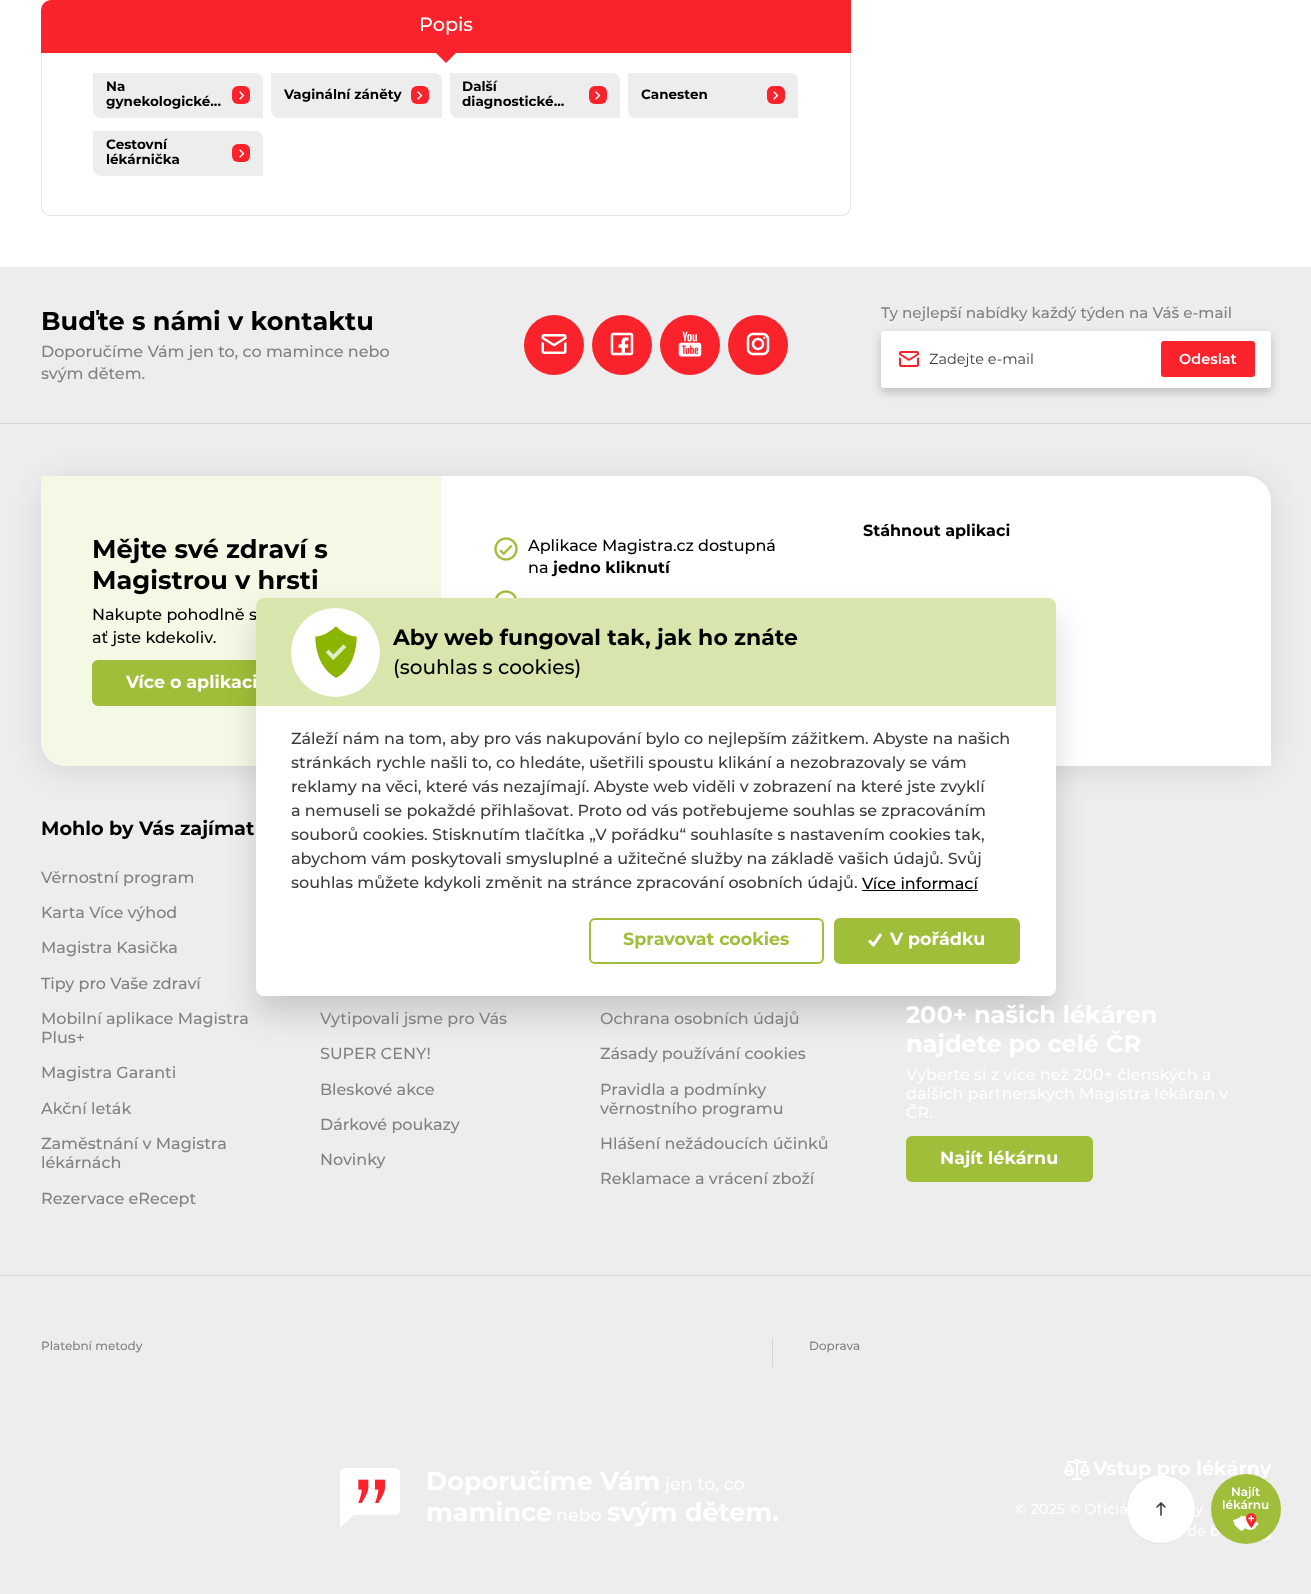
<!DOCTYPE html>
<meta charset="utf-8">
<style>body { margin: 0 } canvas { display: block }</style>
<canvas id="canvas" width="1311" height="1594"></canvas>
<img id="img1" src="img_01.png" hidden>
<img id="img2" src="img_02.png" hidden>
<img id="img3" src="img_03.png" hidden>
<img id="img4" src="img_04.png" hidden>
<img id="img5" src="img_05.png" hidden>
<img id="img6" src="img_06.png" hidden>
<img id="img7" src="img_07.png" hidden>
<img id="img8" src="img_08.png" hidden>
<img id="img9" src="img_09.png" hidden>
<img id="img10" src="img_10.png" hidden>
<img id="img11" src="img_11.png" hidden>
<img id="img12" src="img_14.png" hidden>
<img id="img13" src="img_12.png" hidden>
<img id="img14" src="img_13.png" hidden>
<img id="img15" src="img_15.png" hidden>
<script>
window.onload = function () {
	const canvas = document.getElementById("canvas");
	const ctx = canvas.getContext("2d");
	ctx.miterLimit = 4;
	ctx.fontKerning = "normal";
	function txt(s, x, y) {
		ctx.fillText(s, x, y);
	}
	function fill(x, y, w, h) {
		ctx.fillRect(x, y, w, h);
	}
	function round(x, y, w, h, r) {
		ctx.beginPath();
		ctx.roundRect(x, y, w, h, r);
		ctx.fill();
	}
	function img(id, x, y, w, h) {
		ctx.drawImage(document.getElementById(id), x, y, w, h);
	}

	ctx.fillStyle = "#FFFFFF";
	fill(0, 0, 1311, 1594);
	ctx.fillStyle = "#E6E6E6";
	ctx.beginPath();
	ctx.moveTo(41, -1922);
	ctx.lineTo(851, -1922);
	ctx.lineTo(851, 206);
	ctx.bezierCurveTo(851, 212, 847, 216, 841, 216);
	ctx.lineTo(51, 216);
	ctx.bezierCurveTo(45, 216, 41, 212, 41, 206);
	ctx.closePath();
	ctx.moveTo(42, -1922);
	ctx.lineTo(850, -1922);
	ctx.lineTo(850, 206);
	ctx.bezierCurveTo(850, 211, 846, 215, 841, 215);
	ctx.lineTo(51, 215);
	ctx.bezierCurveTo(46, 215, 42, 211, 42, 206);
	ctx.closePath();
	ctx.fill("evenodd");
	ctx.fillStyle = "#FFFFFF";
	fill(41, 0, 1, 10);
	ctx.fillStyle = "#FA232B";
	ctx.beginPath();
	ctx.roundRect(41, 0, 810, 53, [10, 0, 0, 0]);
	ctx.fill();
	ctx.beginPath();
	ctx.moveTo(436, 53);
	ctx.lineTo(456, 53);
	ctx.lineTo(446, 63);
	ctx.closePath();
	ctx.fill();
	ctx.fillStyle = "#EDEDED";
	ctx.beginPath();
	ctx.roundRect(93, 73, 170, 45, [0, 8, 0, 8]);
	ctx.fill();
	ctx.fillStyle = "#FA232B";
	round(232, 86, 18, 18, 6);
	img("img1", 239, 91, 6, 9);
	ctx.fillStyle = "#EDEDED";
	ctx.beginPath();
	ctx.roundRect(271, 73, 171, 45, [0, 8, 0, 8]);
	ctx.fill();
	ctx.fillStyle = "#FA232B";
	round(411, 86, 18, 18, 6);
	img("img1", 417, 91, 6, 9);
	ctx.fillStyle = "#EDEDED";
	ctx.beginPath();
	ctx.roundRect(450, 73, 170, 45, [0, 8, 0, 8]);
	ctx.fill();
	ctx.fillStyle = "#FA232B";
	round(589, 86, 18, 18, 6);
	img("img1", 595, 91, 6, 9);
	ctx.fillStyle = "#EDEDED";
	ctx.beginPath();
	ctx.roundRect(628, 73, 170, 45, [0, 8, 0, 8]);
	ctx.fill();
	ctx.fillStyle = "#FA232B";
	round(767, 86, 18, 18, 6);
	img("img1", 773, 91, 6, 9);
	ctx.fillStyle = "#EDEDED";
	ctx.beginPath();
	ctx.roundRect(93, 131, 170, 45, [0, 8, 0, 8]);
	ctx.fill();
	ctx.fillStyle = "#FA232B";
	round(232, 144, 18, 18, 6);
	img("img1", 239, 149, 6, 9);
	ctx.fillStyle = "#EDEDED";
	fill(0, 267, 1311, 1327);
	ctx.fillStyle = "#D5D5D5";
	fill(0, 423, 1311, 1);
	ctx.fillStyle = "#FA232B";
	ctx.beginPath();
	ctx.arc(554, 345, 30, 0, Math.PI * 2);
	ctx.fill();
	img("img2", 541, 334, 26, 20);
	ctx.beginPath();
	ctx.arc(622, 345, 30, 0, Math.PI * 2);
	ctx.fill();
	img("img3", 610, 332, 24, 24);
	ctx.beginPath();
	ctx.arc(690, 345, 30, 0, Math.PI * 2);
	ctx.fill();
	img("img4", 678, 331, 24, 26);
	ctx.beginPath();
	ctx.arc(758, 345, 30, 0, Math.PI * 2);
	ctx.fill();
	img("img5", 746, 332, 24, 24);
	ctx.fillStyle = "rgba(0, 0, 0, 0.1)";
	ctx.filter = "blur(5px)";
	ctx.beginPath();
	ctx.roundRect(881, 335, 390, 57, 3);
	ctx.fill();
	ctx.filter = "none";
	ctx.filter = "blur(5px)";
	ctx.beginPath();
	ctx.roundRect(881, 335, 390, 57, 3);
	ctx.fill();
	ctx.filter = "none";
	ctx.fillStyle = "#FFFFFF";
	round(881, 331, 390, 57, 3);
	img("img6", 899, 351, 20, 16);
	ctx.fillStyle = "#FA232B";
	ctx.beginPath();
	ctx.roundRect(1162, 342, 92, 34, 2);
	ctx.fill();
	ctx.strokeStyle = "#FA232B";
	ctx.lineWidth = 2;
	ctx.stroke();
	ctx.fillStyle = "rgba(0, 0, 0, 0.1)";
	ctx.filter = "blur(15px)";
	ctx.beginPath();
	ctx.roundRect(41, 480, 1230, 290, 25);
	ctx.fill();
	ctx.filter = "none";
	ctx.fillStyle = "#FFFFFF";
	ctx.beginPath();
	ctx.roundRect(41, 476, 1230, 290, [0, 25, 0, 25]);
	ctx.fill();
	ctx.fillStyle = "#F4F9E5";
	ctx.beginPath();
	ctx.roundRect(41, 476, 400, 290, [0, 0, 0, 25]);
	ctx.fill();
	ctx.fillStyle = "#A0BE39";
	ctx.beginPath();
	ctx.roundRect(93, 661, 198, 44, 5);
	ctx.fill();
	ctx.strokeStyle = "#A0BE39";
	ctx.stroke();
	img("img7", 494, 537, 24, 24);
	img("img8", 495, 590, 22, 8);
	ctx.fillStyle = "#D5D5D5";
	fill(0, 1275, 1311, 1);
	ctx.fillStyle = "#A0BE39";
	ctx.beginPath();
	ctx.roundRect(907, 1137, 185, 44, 5);
	ctx.fill();
	ctx.stroke();
	ctx.fillStyle = "#D5D5D5";
	fill(772, 1338, 1, 29);
	img("img9", 340, 1468, 60, 60);
	img("img10", 1064, 1459, 26, 21);
	img("img11", 1262, 1533, 9, 7);
	ctx.fillStyle = "rgba(0, 0, 0, 0.15)";
	ctx.filter = "blur(15px)";
	ctx.beginPath();
	ctx.roundRect(256, 616, 800, 398, 8);
	ctx.fill();
	ctx.filter = "none";
	ctx.fillStyle = "#FFFFFF";
	ctx.beginPath();
	ctx.arc(1161, 1509, 35, 0, Math.PI * 2);
	ctx.fill();
	ctx.beginPath();
	ctx.arc(1161, 1509, 34.5, 0, Math.PI * 2);
	ctx.strokeStyle = "rgba(0, 0, 0, 0.1)";
	ctx.lineWidth = 1;
	ctx.stroke();
	img("img12", 1156, 1502, 10, 14);
	ctx.font = "500 19.25px Montserrat";
	txt("Popis", 419, 31);
	ctx.font = "bold 13.5px Montserrat";
	ctx.fillStyle = "#000000";
	txt("Na", 106, 91);
	txt("gynekologické...", 106, 106);
	txt("Vaginální záněty", 284, 99);
	txt("Další", 462, 91);
	txt("diagnostické...", 462, 106);
	txt("Canesten", 641, 99);
	txt("Cestovní", 106, 149);
	txt("lékárnička", 106, 164);
	ctx.font = "bold 25.6px Montserrat";
	txt("Buďte s námi v kontaktu", 41, 330);
	ctx.font = "500 16px Montserrat";
	ctx.fillStyle = "#828282";
	txt("Doporučíme Vám jen to, co mamince nebo", 41, 357);
	txt("svým dětem.", 41, 379);
	ctx.font = "500 15.2px Montserrat";
	txt("Ty nejlepší nabídky každý týden na Váš e‑mail", 881, 318);
	ctx.font = "14.5px Montserrat";
	ctx.fillStyle = "#3D3D3D";
	txt("Zadejte e-mail", 929, 364);
	ctx.font = "600 14.5px Montserrat";
	ctx.fillStyle = "#FFFFFF";
	txt("Odeslat", 1179, 364);
	ctx.font = "bold 16px Montserrat";
	ctx.fillStyle = "#000000";
	txt("Stáhnout aplikaci", 863, 536);
	ctx.font = "bold 25.6px Montserrat";
	txt("Mějte své zdraví s", 92, 558);
	txt("Magistrou v hrsti", 92, 589);
	ctx.font = "500 16px Montserrat";
	txt("Nakupte pohodlně s", 92, 620);
	txt("ať jste kdekoliv.", 92, 643);
	ctx.font = "bold 17.5px Montserrat";
	ctx.fillStyle = "#FFFFFF";
	txt("Více o aplikaci", 126, 688);
	ctx.font = "500 16px Montserrat";
	ctx.fillStyle = "#000000";
	txt("Aplikace Magistra.cz dostupná", 528, 551);
	txt("na", 528, 573);
	ctx.font = "bold 16px Montserrat";
	txt("jedno kliknutí", 553, 573);
	ctx.font = "bold 19.25px Montserrat";
	txt("Mohlo by Vás zajímat", 41, 835);
	ctx.font = "500 16px Montserrat";
	ctx.fillStyle = "#828282";
	txt("Věrnostní program", 41, 883);
	txt("Karta Více výhod", 41, 918);
	txt("Magistra Kasička", 41, 953);
	txt("Tipy pro Vaše zdraví", 41, 989);
	txt("Mobilní aplikace Magistra", 41, 1024);
	txt("Plus+", 41, 1043);
	txt("Magistra Garanti", 41, 1078);
	txt("Akční leták", 41, 1114);
	txt("Zaměstnání v Magistra", 41, 1149);
	txt("lékárnách", 41, 1168);
	txt("Rezervace eRecept", 41, 1204);
	txt("Vytipovali jsme pro Vás", 320, 1024);
	txt("SUPER CENY!", 320, 1059);
	txt("Bleskové akce", 320, 1095);
	txt("Dárkové poukazy", 320, 1130);
	txt("Novinky", 320, 1165);
	txt("Ochrana osobních údajů", 600, 1024);
	txt("Zásady používání cookies", 600, 1059);
	txt("Pravidla a podmínky", 600, 1095);
	txt("věrnostního programu", 600, 1114);
	txt("Hlášení nežádoucích účinků", 600, 1149);
	txt("Reklamace a vrácení zboží", 600, 1184);
	ctx.font = "bold 24px Montserrat";
	ctx.fillStyle = "#FFFFFF";
	txt("200+ našich lékáren", 906, 1023);
	txt("najdete po celé ČR", 906, 1052);
	ctx.font = "500 16px Montserrat";
	txt("Vyberte si z více než 200+ členských a", 906, 1080);
	txt("dalších partnerských Magistra lékáren v", 906, 1099);
	txt("ČR.", 906, 1118);
	ctx.font = "bold 17.5px Montserrat";
	txt("Najít lékárnu", 940, 1164);
	ctx.font = "500 12px Montserrat";
	ctx.fillStyle = "#828282";
	txt("Platební metody", 41, 1350);
	txt("Doprava", 809, 1350);
	ctx.font = "bold 25.6px Montserrat";
	ctx.fillStyle = "#FFFFFF";
	txt("Doporučíme Vám", 426, 1490);
	ctx.font = "500 17.5px Montserrat";
	txt("jen to, co", 665, 1490);
	ctx.font = "bold 25.6px Montserrat";
	txt("mamince", 426, 1521);
	ctx.font = "500 17.5px Montserrat";
	txt("nebo", 556, 1521);
	ctx.font = "bold 25.6px Montserrat";
	txt("svým dětem.", 607, 1521);
	ctx.font = "bold 19.25px Montserrat";
	txt("Vstup pro lékárny", 1093, 1475);
	ctx.font = "500 14.5px Montserrat";
	txt("© 2025 © Oficiá", 1015, 1514);
	txt("y", 1195, 1514);
	txt("de b", 1187, 1536);
	round(256, 598, 800, 398, 8);
	ctx.fillStyle = "#D8E5AC";
	ctx.beginPath();
	ctx.roundRect(256, 598, 800, 108, [8, 8, 0, 0]);
	ctx.fill();
	ctx.fillStyle = "#FFFFFF";
	ctx.beginPath();
	ctx.arc(335.5, 652.5, 44.5, 0, Math.PI * 2);
	ctx.fill();
	img("img13", 315, 626, 42, 52);
	ctx.font = "bold 22px Montserrat";
	ctx.fillStyle = "#000000";
	txt("Aby web fungoval tak, jak ho znáte", 393, 645);
	ctx.font = "500 20px Montserrat";
	txt("(souhlas s cookies)", 393, 674);
	ctx.font = "500 16px Montserrat";
	ctx.fillStyle = "#3D3D3D";
	txt("Záleží nám na tom, aby pro vás nakupování bylo co nejlepším zážitkem. Abyste na našich", 291, 744);
	txt("stránkách rychle našli to, co hledáte, ušetřili spoustu klikání a nezobrazovaly se vám", 291, 768);
	txt("reklamy na věci, které vás nezajímají. Abyste web viděli v zobrazení na které jste zvyklí", 291, 792);
	txt("a nemuseli se pokaždé přihlašovat. Proto od vás potřebujeme souhlas se zpracováním", 291, 816);
	txt("souborů cookies. Stisknutím tlačítka „V pořádku“ souhlasíte s nastavením cookies tak,", 291, 840);
	txt("abychom vám poskytovali smysluplné a užitečné služby na základě vašich údajů. Svůj", 291, 864);
	txt("souhlas můžete kdykoli změnit na stránce zpracování osobních údajů.", 291, 888);
	ctx.fillStyle = "#000000";
	txt("Více informací", 862, 889);
	fill(862, 890, 116, 1);
	ctx.fillStyle = "#FFFFFF";
	ctx.beginPath();
	ctx.roundRect(256, 897, 800, 99, [0, 0, 8, 8]);
	ctx.fill();
	ctx.beginPath();
	ctx.roundRect(590, 919, 233, 44, 5);
	ctx.strokeStyle = "#A0BE39";
	ctx.lineWidth = 2;
	ctx.stroke();
	ctx.font = "bold 17.5px Montserrat";
	ctx.fillStyle = "#A0BE39";
	txt("Spravovat cookies", 623, 945);
	ctx.beginPath();
	ctx.roundRect(835, 919, 184, 44, 5);
	ctx.fill();
	ctx.stroke();
	img("img14", 868, 933, 14, 14);
	ctx.fillStyle = "#FFFFFF";
	txt("V pořádku", 890, 945);
	ctx.fillStyle = "#A0BE39";
	ctx.beginPath();
	ctx.arc(1246, 1509, 35, 0, Math.PI * 2);
	ctx.fill();
	ctx.font = "600 12px Montserrat";
	ctx.fillStyle = "#FFFFFF";
	txt("Najít", 1231, 1496);
	txt("lékárnu", 1222, 1509);
	img("img15", 1233, 1513, 26, 18);
};
</script>
